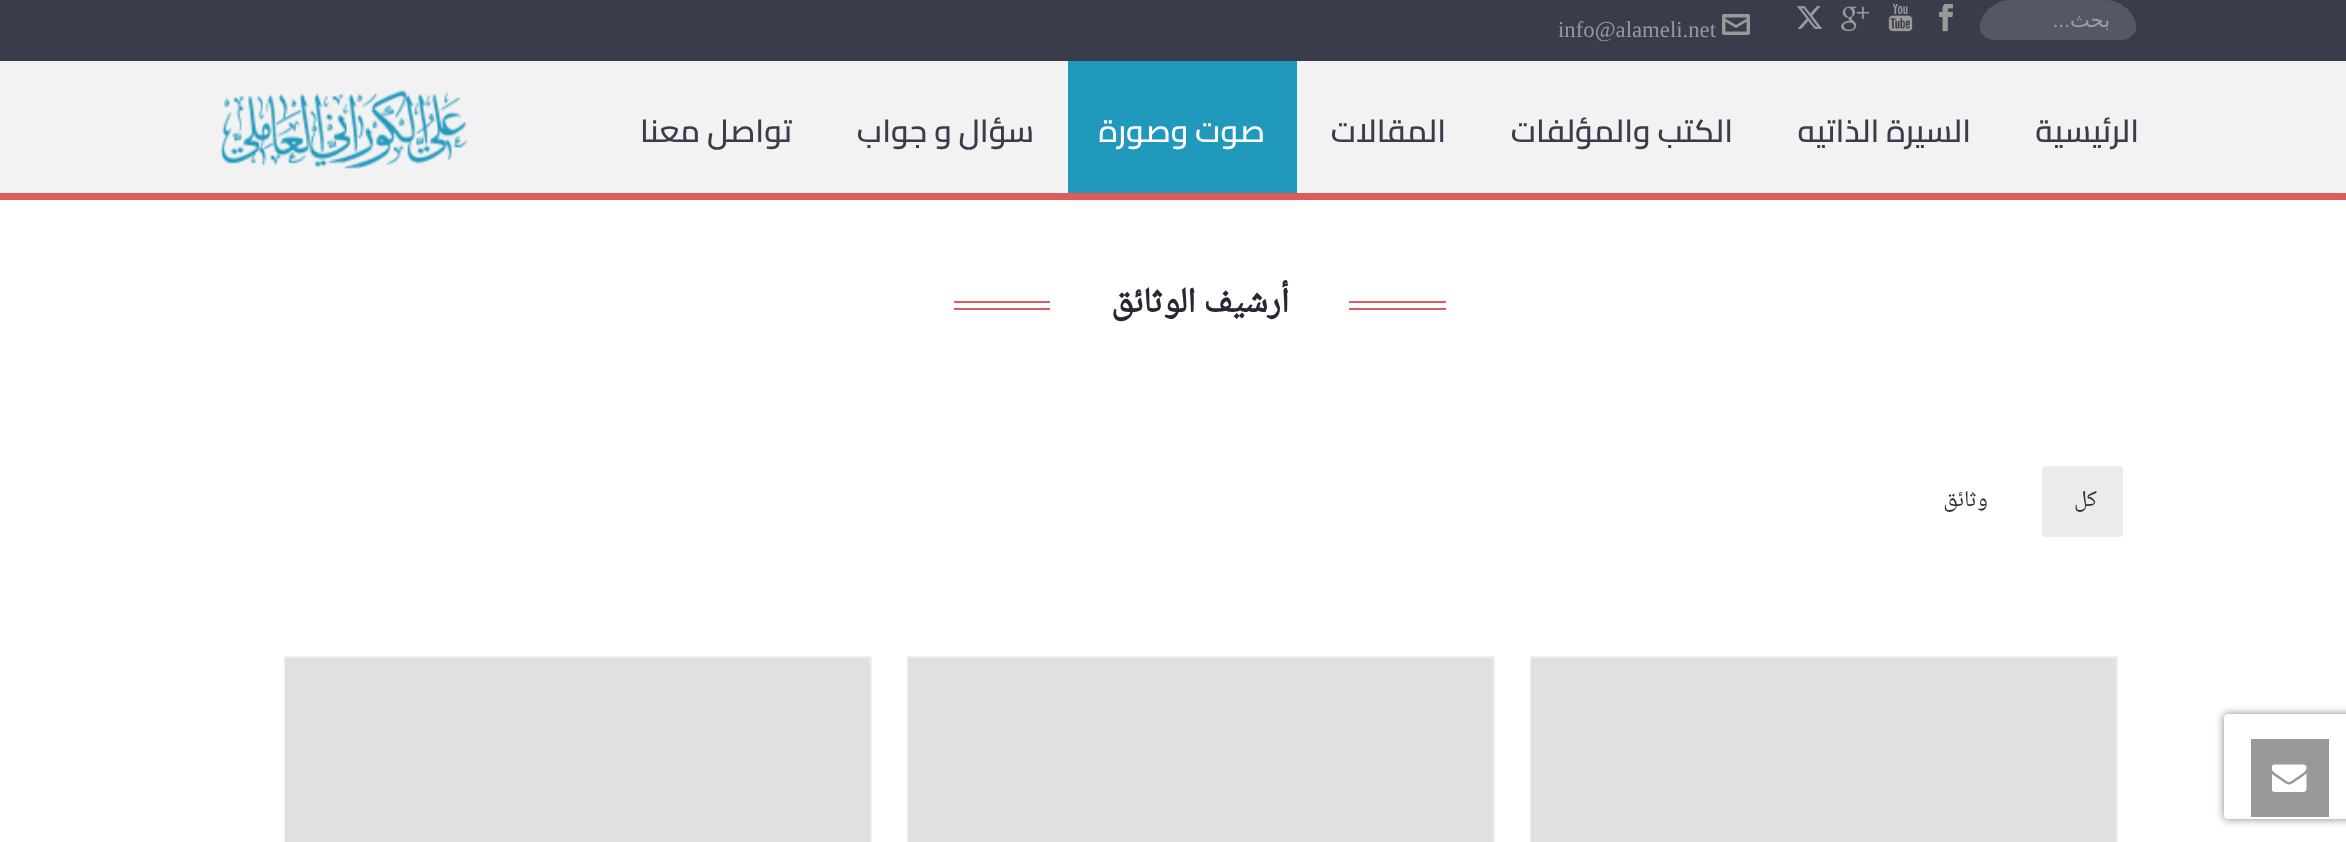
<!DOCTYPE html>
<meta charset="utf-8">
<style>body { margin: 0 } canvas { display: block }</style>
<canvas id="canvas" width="2346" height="842"></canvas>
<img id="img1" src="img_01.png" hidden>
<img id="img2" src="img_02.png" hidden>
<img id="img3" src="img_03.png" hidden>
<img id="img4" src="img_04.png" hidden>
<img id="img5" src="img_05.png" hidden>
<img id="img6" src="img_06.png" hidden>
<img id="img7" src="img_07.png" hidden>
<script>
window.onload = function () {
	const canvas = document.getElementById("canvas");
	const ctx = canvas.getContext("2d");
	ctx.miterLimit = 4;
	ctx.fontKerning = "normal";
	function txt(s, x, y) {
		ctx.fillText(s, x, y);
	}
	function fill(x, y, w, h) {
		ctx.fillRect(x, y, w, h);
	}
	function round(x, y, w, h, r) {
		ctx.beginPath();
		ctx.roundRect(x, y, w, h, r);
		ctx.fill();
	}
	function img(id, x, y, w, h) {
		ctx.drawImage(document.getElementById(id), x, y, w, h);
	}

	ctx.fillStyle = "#FFFFFF";
	fill(0, 0, 2346, 842);
	ctx.fillStyle = "#383C4B";
	fill(0, 0, 2346, 61);
	ctx.save();
	ctx.beginPath();
	ctx.roundRect(1979, 0, 158, 63, 31.5);
	ctx.clip();
	ctx.fillStyle = "#545764";
	ctx.beginPath();
	ctx.roundRect(1979, 0, 158, 40, [31.5, 31.5, 20, 20]);
	ctx.fill();
	ctx.restore();
	img("img1", 1939, 4, 14, 28);
	img("img2", 1888, 4, 25, 28);
	img("img3", 1841, 6, 28, 26);
	img("img4", 1797, 6, 26, 23);
	img("img5", 1722, 14, 28, 21);
	ctx.fillStyle = "#DE5B5B";
	fill(0, 193, 2346, 7);
	ctx.fillStyle = "#F2F2F2";
	fill(0, 61, 2346, 132);
	ctx.fillStyle = "#2199BC";
	fill(1068, 61, 229, 132);
	img("img6", 220, 90, 248, 79);
	ctx.fillStyle = "#DE5B5B";
	fill(1349, 301, 97, 2);
	fill(1349, 308, 97, 2);
	fill(954, 301, 96, 2);
	fill(954, 308, 96, 2);
	ctx.fillStyle = "#EBEBEB";
	round(2042, 466, 81, 71, 4);
	ctx.strokeStyle = "#EFEFEF";
	ctx.lineWidth = 2;
	ctx.strokeRect(1531, 657, 586, 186);
	ctx.fillStyle = "#E0E0E0";
	fill(1531, 658, 585, 184);
	ctx.strokeRect(908, 657, 586, 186);
	fill(908, 658, 585, 184);
	ctx.strokeRect(285, 657, 586, 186);
	fill(285, 658, 585, 184);
	ctx.save();
	ctx.beginPath();
	ctx.moveTo(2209, 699);
	ctx.lineTo(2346, 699);
	ctx.lineTo(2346, 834);
	ctx.lineTo(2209, 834);
	ctx.closePath();
	ctx.moveTo(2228, 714);
	ctx.lineTo(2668, 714);
	ctx.bezierCurveTo(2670, 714, 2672, 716, 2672, 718);
	ctx.lineTo(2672, 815);
	ctx.bezierCurveTo(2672, 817, 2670, 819, 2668, 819);
	ctx.lineTo(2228, 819);
	ctx.bezierCurveTo(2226, 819, 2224, 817, 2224, 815);
	ctx.lineTo(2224, 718);
	ctx.bezierCurveTo(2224, 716, 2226, 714, 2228, 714);
	ctx.closePath();
	ctx.clip("evenodd");
	ctx.fillStyle = "#808080";
	ctx.filter = "blur(4.5px)";
	ctx.beginPath();
	ctx.roundRect(2224, 714, 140, 105, 4);
	ctx.fill();
	ctx.filter = "none";
	ctx.restore();
	ctx.fillStyle = "#999999";
	fill(2251, 739, 78, 78);
	img("img7", 2272, 764, 35, 28);
	ctx.direction = "rtl";
	ctx.font = "21px DejaVu Sans";
	ctx.fillStyle = "#9C9DA2";
	txt("بحث", 2110, 27);
	ctx.font = "21px Liberation Sans";
	txt("...", 2070, 27);
	ctx.direction = "ltr";
	ctx.font = "22.75px Liberation Serif";
	ctx.fillStyle = "#999999";
	txt("info@alameli.net", 1558, 37);
	ctx.direction = "rtl";
	ctx.font = "600 31.5px Cairo";
	ctx.fillStyle = "#383C4B";
	txt("الرئیسیة", 2139, 142);
	txt("السیرة الذاتیه", 1971, 142);
	txt("الكتب والمؤلفات", 1733, 142);
	txt("المقالات", 1446, 142);
	ctx.fillStyle = "#FFFFFF";
	txt("صوت وصورة", 1265, 142);
	ctx.fillStyle = "#383C4B";
	txt("سؤال و جواب", 1034, 142);
	txt("تواصل معنا", 792, 142);
	ctx.font = "bold 35px Noto Naskh Arabic";
	ctx.fillStyle = "#262934";
	txt("أرشيف الوثائق", 1289, 312);
	ctx.letterSpacing = "1.75px";
	ctx.font = "22.75px Noto Naskh Arabic";
	ctx.fillStyle = "#323232";
	txt("كل", 2097, 506);
	txt("وثائق", 1988, 506);
};
</script>
